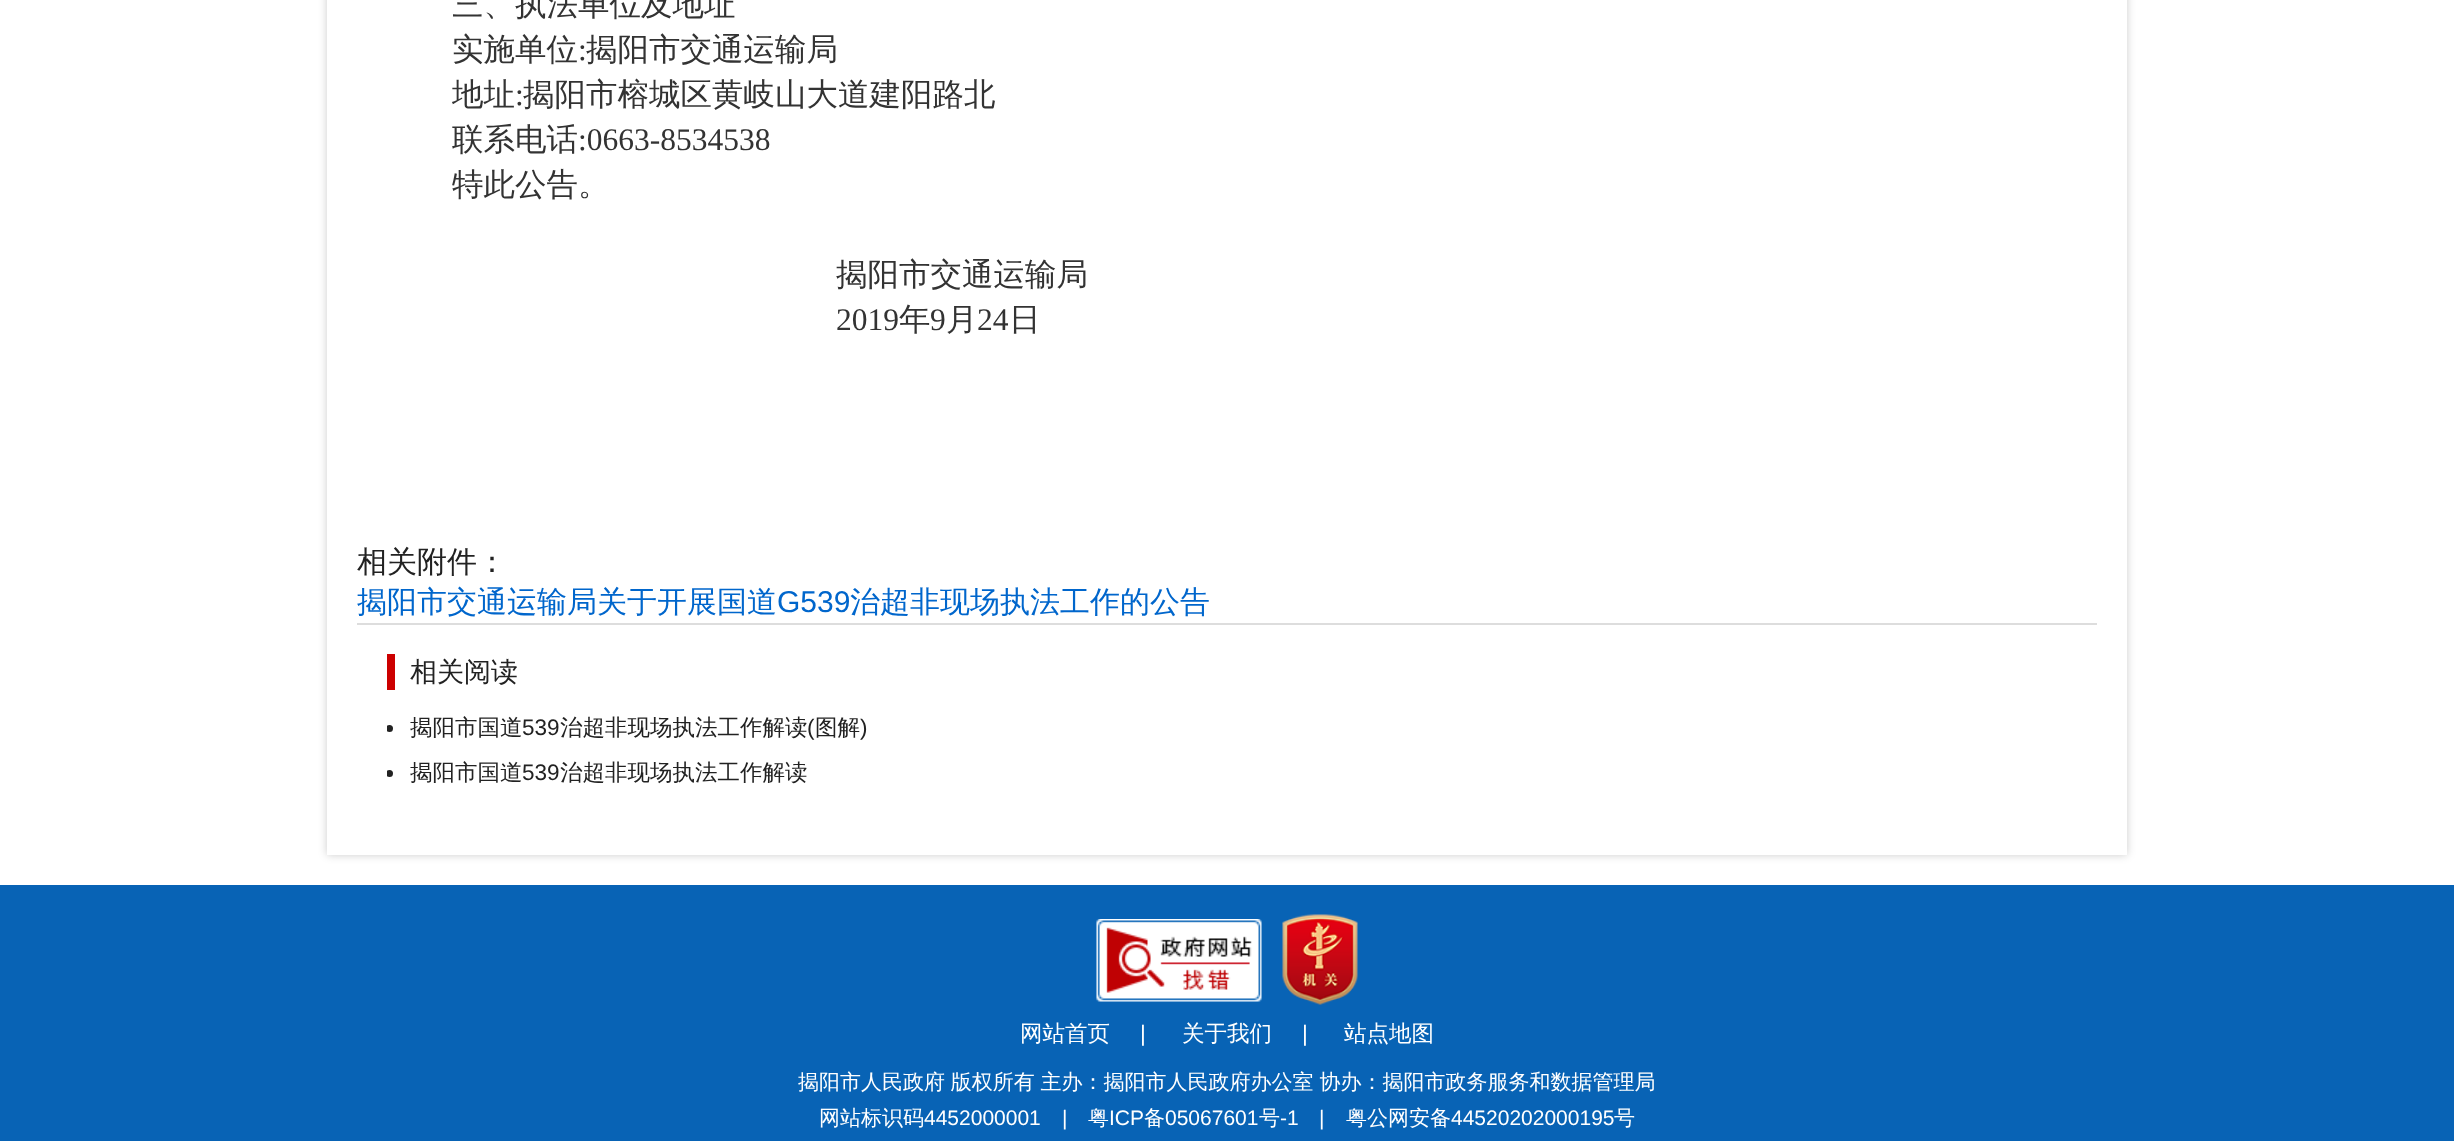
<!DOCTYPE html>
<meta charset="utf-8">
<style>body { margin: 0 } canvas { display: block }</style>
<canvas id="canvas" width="2454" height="1141"></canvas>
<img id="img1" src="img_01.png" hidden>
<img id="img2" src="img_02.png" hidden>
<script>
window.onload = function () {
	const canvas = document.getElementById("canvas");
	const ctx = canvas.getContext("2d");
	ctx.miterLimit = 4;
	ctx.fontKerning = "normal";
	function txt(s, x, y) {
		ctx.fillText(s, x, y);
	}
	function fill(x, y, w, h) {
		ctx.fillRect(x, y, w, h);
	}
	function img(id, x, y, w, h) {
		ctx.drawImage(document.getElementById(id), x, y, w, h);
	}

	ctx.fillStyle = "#FFFFFF";
	fill(0, 0, 2454, 1141);
	ctx.save();
	ctx.beginPath();
	ctx.moveTo(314, 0);
	ctx.lineTo(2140, 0);
	ctx.lineTo(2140, 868);
	ctx.lineTo(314, 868);
	ctx.closePath();
	ctx.moveTo(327, -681);
	ctx.lineTo(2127, -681);
	ctx.lineTo(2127, 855);
	ctx.lineTo(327, 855);
	ctx.closePath();
	ctx.clip("evenodd");
	ctx.fillStyle = "rgba(0, 0, 0, 0.2)";
	ctx.filter = "blur(4px)";
	ctx.beginPath();
	ctx.rect(327, -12, 1800, 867);
	ctx.fill();
	ctx.filter = "none";
	ctx.restore();
	ctx.fillStyle = "#DDDDDD";
	fill(357, 623, 1740, 2);
	ctx.fillStyle = "#CC0000";
	fill(387, 654, 8, 36);
	ctx.save();
	ctx.beginPath();
	ctx.rect(387, 705, 1680, 90);
	ctx.clip();
	ctx.fillStyle = "#222222";
	ctx.beginPath();
	ctx.arc(389.5, 728.5, 3.5, 0, Math.PI * 2);
	ctx.fill();
	ctx.beginPath();
	ctx.arc(389.5, 773.5, 3.5, 0, Math.PI * 2);
	ctx.fill();
	ctx.restore();
	ctx.fillStyle = "#0863B5";
	fill(0, 885, 2454, 256);
	img("img1", 1096, 919, 166, 83);
	img("img2", 1282, 914, 76, 91);
	ctx.font = "500 31.5px WenQuanYi Zen Hei";
	ctx.fillStyle = "#333333";
	txt("三、执法单位及地址", 452, 15);
	txt("实施单位", 452, 60);
	ctx.font = "31.5px Liberation Serif";
	txt(":", 578, 60);
	ctx.font = "500 31.5px WenQuanYi Zen Hei";
	txt("揭阳市交通运输局", 586, 60);
	txt("地址", 452, 105);
	ctx.font = "31.5px Liberation Serif";
	txt(":", 515, 105);
	ctx.font = "500 31.5px WenQuanYi Zen Hei";
	txt("揭阳市榕城区黄岐山大道建阳路北", 523, 105);
	txt("联系电话", 452, 150);
	ctx.font = "31.5px Liberation Serif";
	txt(":0663-8534538", 578, 150);
	ctx.font = "500 31.5px WenQuanYi Zen Hei";
	txt("特此公告。", 452, 195);
	txt("揭阳市交通运输局", 836, 285);
	ctx.font = "31.5px Liberation Serif";
	txt("2019", 836, 330);
	ctx.font = "500 31.5px WenQuanYi Zen Hei";
	txt("年", 899, 330);
	ctx.font = "31.5px Liberation Serif";
	txt("9", 930, 330);
	ctx.font = "500 31.5px WenQuanYi Zen Hei";
	txt("月", 946, 330);
	ctx.font = "31.5px Liberation Serif";
	txt("24", 977, 330);
	ctx.font = "500 31.5px WenQuanYi Zen Hei";
	txt("日", 1009, 330);
	ctx.font = "500 30px WenQuanYi Zen Hei";
	ctx.fillStyle = "#222222";
	txt("相关附件：", 357, 572);
	ctx.fillStyle = "#0066CC";
	txt("揭阳市交通运输局关于开展国道", 357, 612);
	ctx.font = "30px Liberation Sans";
	txt("G539", 777, 612);
	ctx.font = "500 30px WenQuanYi Zen Hei";
	txt("治超非现场执法工作的公告", 850, 612);
	ctx.font = "500 27px WenQuanYi Zen Hei";
	ctx.fillStyle = "#222222";
	txt("相关阅读", 410, 681);
	ctx.font = "500 22.5px WenQuanYi Zen Hei";
	txt("揭阳市国道", 410, 735);
	ctx.font = "22.5px Liberation Sans";
	txt("539", 522, 735);
	ctx.font = "500 22.5px WenQuanYi Zen Hei";
	txt("治超非现场执法工作解读", 560, 735);
	ctx.font = "22.5px Liberation Sans";
	txt("(", 807, 735);
	ctx.font = "500 22.5px WenQuanYi Zen Hei";
	txt("图解", 815, 735);
	ctx.font = "22.5px Liberation Sans";
	txt(")", 860, 735);
	ctx.font = "500 22.5px WenQuanYi Zen Hei";
	txt("揭阳市国道", 410, 780);
	ctx.font = "22.5px Liberation Sans";
	txt("539", 522, 780);
	ctx.font = "500 22.5px WenQuanYi Zen Hei";
	txt("治超非现场执法工作解读", 560, 780);
	ctx.fillStyle = "#FFFFFF";
	txt("网站首页", 1020, 1041);
	ctx.font = "22.5px Liberation Sans";
	txt("|", 1140, 1041);
	ctx.font = "500 22.5px WenQuanYi Zen Hei";
	txt("关于我们", 1182, 1041);
	ctx.font = "22.5px Liberation Sans";
	txt("|", 1302, 1041);
	ctx.font = "500 22.5px WenQuanYi Zen Hei";
	txt("站点地图", 1344, 1041);
	ctx.wordSpacing = "-0.5px";
	ctx.font = "500 21px WenQuanYi Zen Hei";
	txt("揭阳市人民政府 版权所有 主办：揭阳市人民政府办公室 协办：揭阳市政务服务和数据管理局", 798, 1089);
	ctx.wordSpacing = "0px";
	txt("网站标识码", 819, 1125);
	ctx.font = "21px Liberation Sans";
	txt("4452000001", 924, 1125);
	txt("|", 1062, 1125);
	ctx.font = "500 21px WenQuanYi Zen Hei";
	txt("粤", 1088, 1125);
	ctx.font = "21px Liberation Sans";
	txt("ICP", 1109, 1125);
	ctx.font = "500 21px WenQuanYi Zen Hei";
	txt("备", 1144, 1125);
	ctx.font = "21px Liberation Sans";
	txt("05067601", 1165, 1125);
	ctx.font = "500 21px WenQuanYi Zen Hei";
	txt("号", 1259, 1125);
	ctx.font = "21px Liberation Sans";
	txt("-1", 1280, 1125);
	txt("|", 1319, 1125);
	ctx.font = "500 21px WenQuanYi Zen Hei";
	txt("粤公网安备", 1346, 1125);
	ctx.font = "21px Liberation Sans";
	txt("44520202000195", 1451, 1125);
	ctx.font = "500 21px WenQuanYi Zen Hei";
	txt("号", 1614, 1125);
};
</script>
